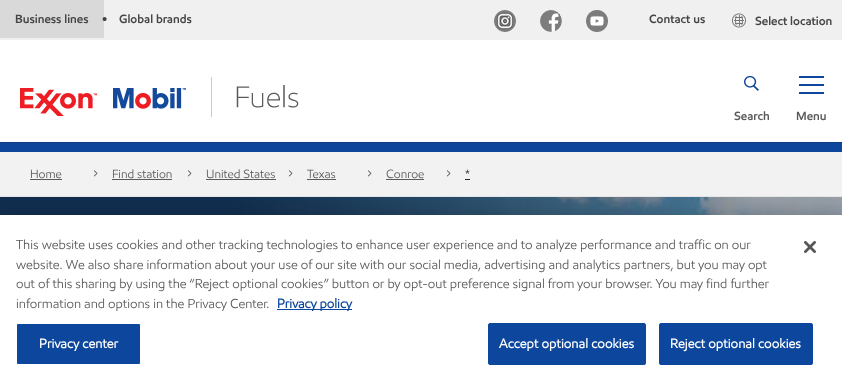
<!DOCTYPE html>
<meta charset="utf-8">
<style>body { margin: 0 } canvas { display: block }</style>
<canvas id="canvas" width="842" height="385"></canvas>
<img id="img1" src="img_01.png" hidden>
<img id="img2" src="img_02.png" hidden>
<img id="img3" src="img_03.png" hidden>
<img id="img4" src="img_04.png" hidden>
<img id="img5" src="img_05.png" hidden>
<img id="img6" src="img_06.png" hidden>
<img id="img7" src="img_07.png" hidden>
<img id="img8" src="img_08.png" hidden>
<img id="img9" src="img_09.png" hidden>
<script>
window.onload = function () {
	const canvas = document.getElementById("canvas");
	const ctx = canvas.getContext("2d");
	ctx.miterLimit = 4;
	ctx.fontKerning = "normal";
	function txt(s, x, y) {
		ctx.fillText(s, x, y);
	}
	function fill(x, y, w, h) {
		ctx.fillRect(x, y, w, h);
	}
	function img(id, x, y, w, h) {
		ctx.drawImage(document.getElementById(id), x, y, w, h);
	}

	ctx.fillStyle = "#FFFFFF";
	fill(0, 0, 842, 385);
	ctx.fillStyle = "#0E469B";
	fill(0, 142, 842, 10);
	ctx.save();
	ctx.beginPath();
	ctx.rect(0, 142, 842, 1);
	ctx.clip();
	ctx.fillStyle = "rgba(17, 17, 17, 0.15)";
	ctx.filter = "blur(0.5px)";
	ctx.beginPath();
	ctx.rect(0, 1, 842, 142);
	ctx.fill();
	ctx.filter = "none";
	ctx.restore();
	ctx.fillStyle = "#F0F0F0";
	fill(0, 0, 842, 40);
	ctx.fillStyle = "#D9D9D9";
	fill(0, 0, 104, 38);
	img("img1", 494, 10, 22, 22);
	img("img2", 540, 10, 22, 22);
	img("img3", 586, 10, 22, 22);
	img("img4", 731, 13, 15, 15);
	img("img5", 20, 77, 279, 40);
	img("img6", 744, 75, 15, 16);
	ctx.fillStyle = "#0E469B";
	fill(799, 84, 25, 2);
	fill(799, 76, 25, 2);
	fill(799, 92, 25, 2);
	ctx.fillStyle = "#F2F2F2";
	fill(0, 152, 842, 44);
	ctx.fillStyle = "#E6E6E6";
	fill(0, 196, 842, 1);
	ctx.fillStyle = "#5A5A5A";
	fill(30, 179, 32, 1);
	img("img7", 93, 170, 5, 7);
	fill(112, 179, 60, 1);
	img("img7", 187, 170, 5, 7);
	fill(206, 179, 70, 1);
	img("img7", 288, 170, 5, 7);
	fill(307, 179, 29, 1);
	img("img7", 367, 170, 5, 7);
	fill(386, 179, 38, 1);
	img("img7", 446, 170, 5, 7);
	ctx.fillStyle = "#2B2626";
	fill(465, 179, 5, 1);
	img("img8", 0, 197, 842, 18);
	ctx.fillStyle = "rgba(0, 0, 0, 0.2)";
	ctx.filter = "blur(9px)";
	ctx.beginPath();
	ctx.rect(0, 215, 842, 170);
	ctx.fill();
	ctx.filter = "none";
	ctx.fillStyle = "#FFFFFF";
	fill(0, 215, 842, 170);
	ctx.fillStyle = "#0C479D";
	fill(277, 309, 75, 1);
	ctx.beginPath();
	ctx.roundRect(16.5, 323.5, 124, 41, 1.5);
	ctx.fill();
	ctx.strokeStyle = "#FFFFFF";
	ctx.stroke();
	ctx.beginPath();
	ctx.roundRect(488.5, 323.5, 157, 41, 1.5);
	ctx.fill();
	ctx.strokeStyle = "#0C479D";
	ctx.stroke();
	ctx.beginPath();
	ctx.roundRect(659.5, 323.5, 153, 41, 1.5);
	ctx.fill();
	ctx.stroke();
	img("img9", 804, 241, 12, 12);
	ctx.font = "600 12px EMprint";
	ctx.fillStyle = "#454545";
	txt("Business lines", 15, 23);
	ctx.font = "15px Liberation Sans";
	txt("•", 102, 24);
	ctx.font = "600 12px EMprint";
	txt("Global brands", 119, 23);
	txt("Contact us", 649, 23);
	txt("Select location", 755, 25);
	ctx.fillStyle = "#5A5A5A";
	txt("Search", 734, 120);
	txt("Menu", 796, 120);
	ctx.font = "12px EMprint";
	txt("Home", 30, 178);
	txt("Find station", 112, 178);
	txt("United States", 206, 178);
	txt("Texas", 307, 178);
	txt("Conroe", 386, 178);
	ctx.fillStyle = "#2B2626";
	txt("*", 465, 178);
	ctx.font = "13px EMprint";
	ctx.fillStyle = "#5A5A5A";
	txt("This website uses cookies and other tracking technologies to enhance user experience and to analyze performance and traffic on our", 16, 249);
	txt("website. We also share information about your use of our site with our social media, advertising and analytics partners, but you may opt", 16, 269);
	txt("out of this sharing by using the “Reject optional cookies” button or by opt-out preference signal from your browser. You may find further", 16, 288);
	txt("information and options in the Privacy Center.", 16, 308);
	ctx.font = "bold 13px EMprint";
	ctx.fillStyle = "#0C479D";
	txt("Privacy policy", 277, 308);
	ctx.letterSpacing = "0.1px";
	ctx.fillStyle = "#FFFFFF";
	txt("Privacy center", 39, 348);
	txt("Accept optional cookies", 499, 348);
	txt("Reject optional cookies", 670, 348);
};
</script>
